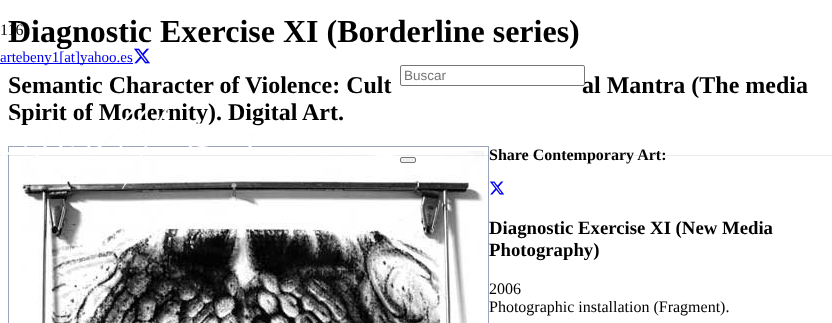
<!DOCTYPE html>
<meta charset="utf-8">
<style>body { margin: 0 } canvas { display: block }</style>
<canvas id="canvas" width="832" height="323"></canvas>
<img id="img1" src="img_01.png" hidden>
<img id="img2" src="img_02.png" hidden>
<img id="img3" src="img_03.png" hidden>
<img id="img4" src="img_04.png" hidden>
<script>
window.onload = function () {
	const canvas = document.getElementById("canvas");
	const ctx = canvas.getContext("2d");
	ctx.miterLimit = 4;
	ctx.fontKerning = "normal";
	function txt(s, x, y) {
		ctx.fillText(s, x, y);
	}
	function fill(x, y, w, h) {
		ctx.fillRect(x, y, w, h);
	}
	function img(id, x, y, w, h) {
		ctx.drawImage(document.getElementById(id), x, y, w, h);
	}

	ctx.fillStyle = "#FFFFFF";
	fill(0, 0, 832, 323);
	ctx.strokeStyle = "#9AA4BA";
	ctx.strokeRect(8.5, 146.5, 480, 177);
	img("img1", 21, 151, 463, 172);
	img("img2", 490, 181, 15, 14);
	ctx.fillStyle = "#0000EE";
	fill(0, 63, 133, 1);
	ctx.fillStyle = "rgba(0, 0, 0, 0.08)";
	fill(0, 155, 832, 1);
	ctx.fillStyle = "#EFEFEF";
	ctx.beginPath();
	ctx.roundRect(400.5, 157.5, 15, 5, 1.5);
	ctx.fill();
	ctx.strokeStyle = "#767676";
	ctx.stroke();
	ctx.font = "bold 32px Liberation Serif";
	ctx.fillStyle = "#000000";
	txt("Diagnostic Exercise XI (Borderline series)", 8, 42);
	ctx.font = "bold 24px Liberation Serif";
	txt("Semantic Character of Violence: Cult", 8, 93);
	txt("al Mantra (The media", 582, 93);
	txt("Spirit of Modernity). Digital Art.", 8, 120);
	ctx.font = "bold 16px Liberation Serif";
	txt("Share Contemporary Art:", 489, 160);
	ctx.font = "bold 18.75px Liberation Serif";
	txt("Diagnostic Exercise XI (New Media", 489, 234);
	txt("Photography)", 489, 256);
	ctx.font = "16px Liberation Serif";
	txt("2006", 489, 294);
	txt("Photographic installation (Fragment).", 489, 312);
	txt("116", 0, 35);
	ctx.font = "15px Liberation Serif";
	ctx.fillStyle = "#0000EE";
	txt("artebeny1[at]yahoo.es", 0, 62);
	img("img3", 134, 48, 16, 16);
	ctx.fillStyle = "#FFFFFF";
	ctx.beginPath();
	ctx.roundRect(400.5, 65.5, 184, 20, 1.5);
	ctx.fill();
	ctx.stroke();
	ctx.font = "13.5px Liberation Sans";
	ctx.fillStyle = "#757575";
	txt("Buscar", 404, 80);
	img("img4", 0, 90, 398, 99);
};
</script>
